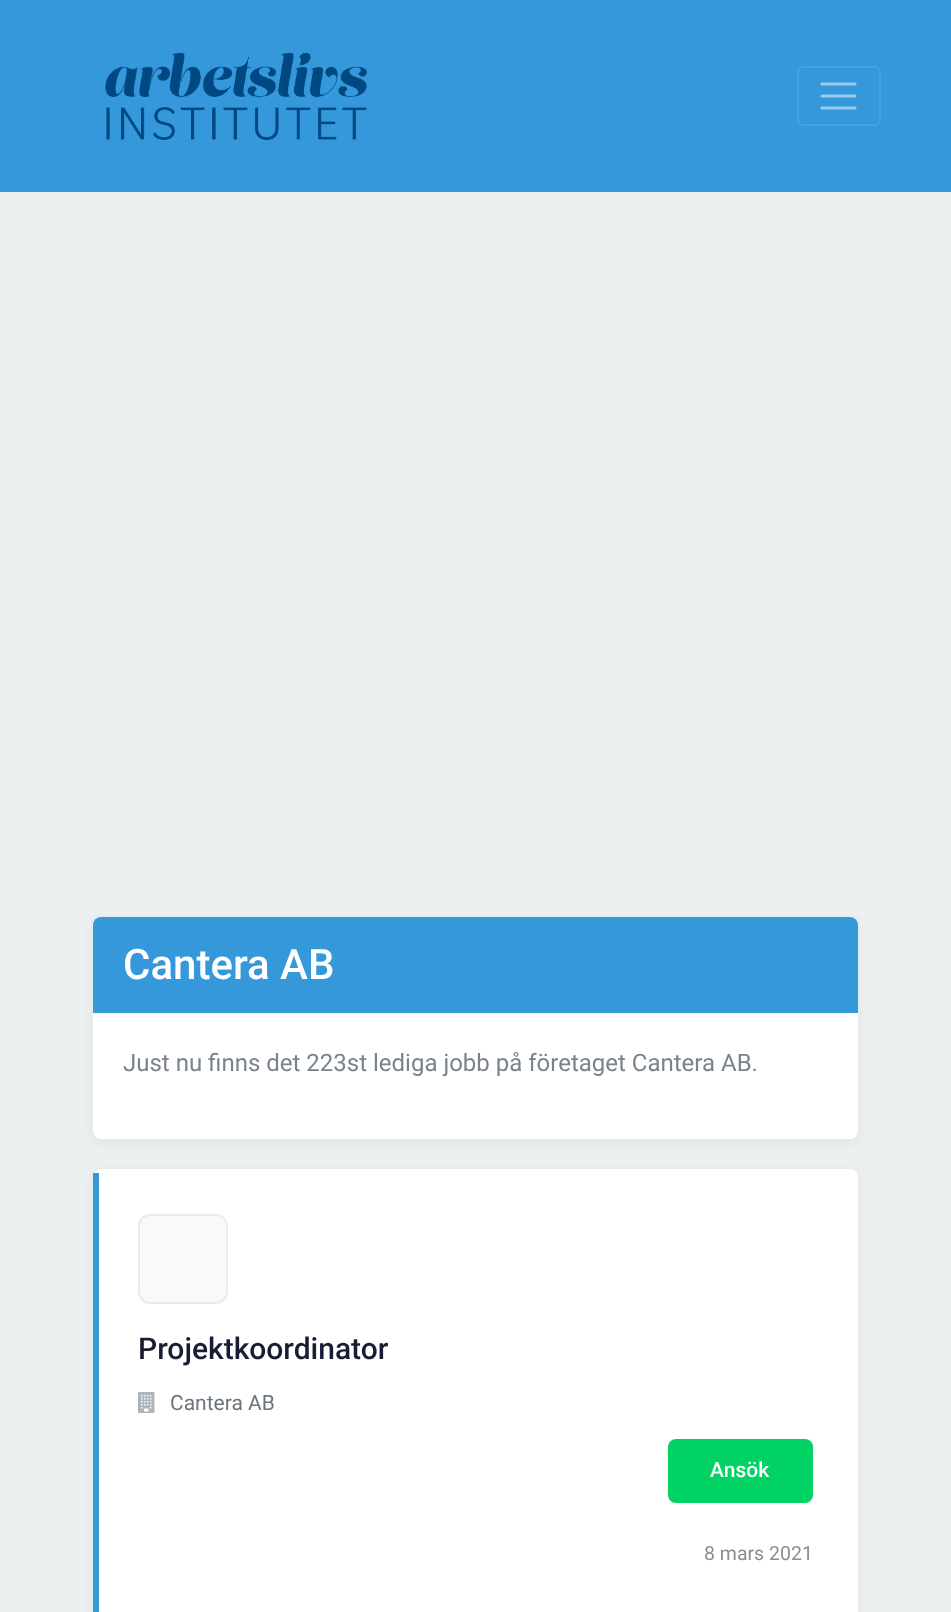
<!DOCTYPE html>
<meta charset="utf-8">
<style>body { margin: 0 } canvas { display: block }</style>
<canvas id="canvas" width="951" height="1612"></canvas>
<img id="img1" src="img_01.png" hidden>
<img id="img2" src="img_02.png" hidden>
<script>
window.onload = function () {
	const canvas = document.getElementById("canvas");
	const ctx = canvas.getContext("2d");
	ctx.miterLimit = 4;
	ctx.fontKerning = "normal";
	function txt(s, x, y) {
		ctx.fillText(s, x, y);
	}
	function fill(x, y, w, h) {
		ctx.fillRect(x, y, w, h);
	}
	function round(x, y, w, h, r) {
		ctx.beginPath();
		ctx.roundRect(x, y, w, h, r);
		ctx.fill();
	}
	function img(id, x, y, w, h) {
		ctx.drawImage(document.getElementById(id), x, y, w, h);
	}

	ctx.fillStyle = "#ECF0F1";
	fill(0, 0, 951, 1612);
	ctx.fillStyle = "#3498DB";
	fill(0, 0, 951, 192);
	img("img1", 105, 52, 262, 88);
	ctx.beginPath();
	ctx.roundRect(798, 67, 82, 58, 5);
	ctx.strokeStyle = "#48A2DF";
	ctx.lineWidth = 2;
	ctx.stroke();
	ctx.beginPath();
	ctx.moveTo(822, 84);
	ctx.lineTo(855, 84);
	ctx.moveTo(822, 96);
	ctx.lineTo(855, 96);
	ctx.moveTo(822, 108);
	ctx.lineTo(855, 108);
	ctx.strokeStyle = "#9ACCED";
	ctx.lineWidth = 3;
	ctx.lineCap = "round";
	ctx.stroke();
	ctx.fillStyle = "rgba(0, 0, 0, 0.06)";
	ctx.filter = "blur(6px)";
	ctx.beginPath();
	ctx.roundRect(93, 920, 765, 222, 8);
	ctx.fill();
	ctx.filter = "none";
	ctx.fillStyle = "#FFFFFF";
	round(93, 917, 765, 222, 8);
	ctx.fillStyle = "#3498DB";
	ctx.beginPath();
	ctx.roundRect(93, 917, 765, 96, [8, 8, 0, 0]);
	ctx.fill();
	ctx.fillStyle = "rgba(0, 0, 0, 0.06)";
	ctx.filter = "blur(6px)";
	ctx.beginPath();
	ctx.roundRect(93, 1172, 765, 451, 8);
	ctx.fill();
	ctx.filter = "none";
	ctx.fillStyle = "#FFFFFF";
	round(93, 1169, 765, 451, 8);
	ctx.fillStyle = "#3498DB";
	fill(93, 1173, 6, 439);
	ctx.fillStyle = "#F8F9FA";
	ctx.beginPath();
	ctx.roundRect(139, 1215, 88, 88, 11);
	ctx.fill();
	ctx.strokeStyle = "#E9ECEF";
	ctx.lineWidth = 2;
	ctx.stroke();
	img("img2", 138, 1392, 17, 21);
	ctx.fillStyle = "#00D363";
	round(668, 1439, 145, 64, 8);
	ctx.font = "500 42px Roboto";
	ctx.fillStyle = "#FFFFFF";
	txt("Cantera AB", 123, 979);
	ctx.font = "24px Roboto";
	ctx.fillStyle = "#7A838B";
	txt("Just nu finns det 223st lediga jobb på företaget Cantera AB.", 123, 1071);
	ctx.font = "500 30px Roboto";
	ctx.fillStyle = "#191D34";
	txt("Projektkoordinator", 138, 1359);
	ctx.font = "21px Roboto";
	ctx.fillStyle = "#6C757D";
	txt("Cantera AB", 170, 1410);
	ctx.font = "500 21px Roboto";
	ctx.fillStyle = "#FFFFFF";
	txt("Ansök", 710, 1477);
	ctx.font = "19.5px Roboto";
	ctx.fillStyle = "#868E96";
	txt("8 mars 2021", 704, 1560);
};
</script>
